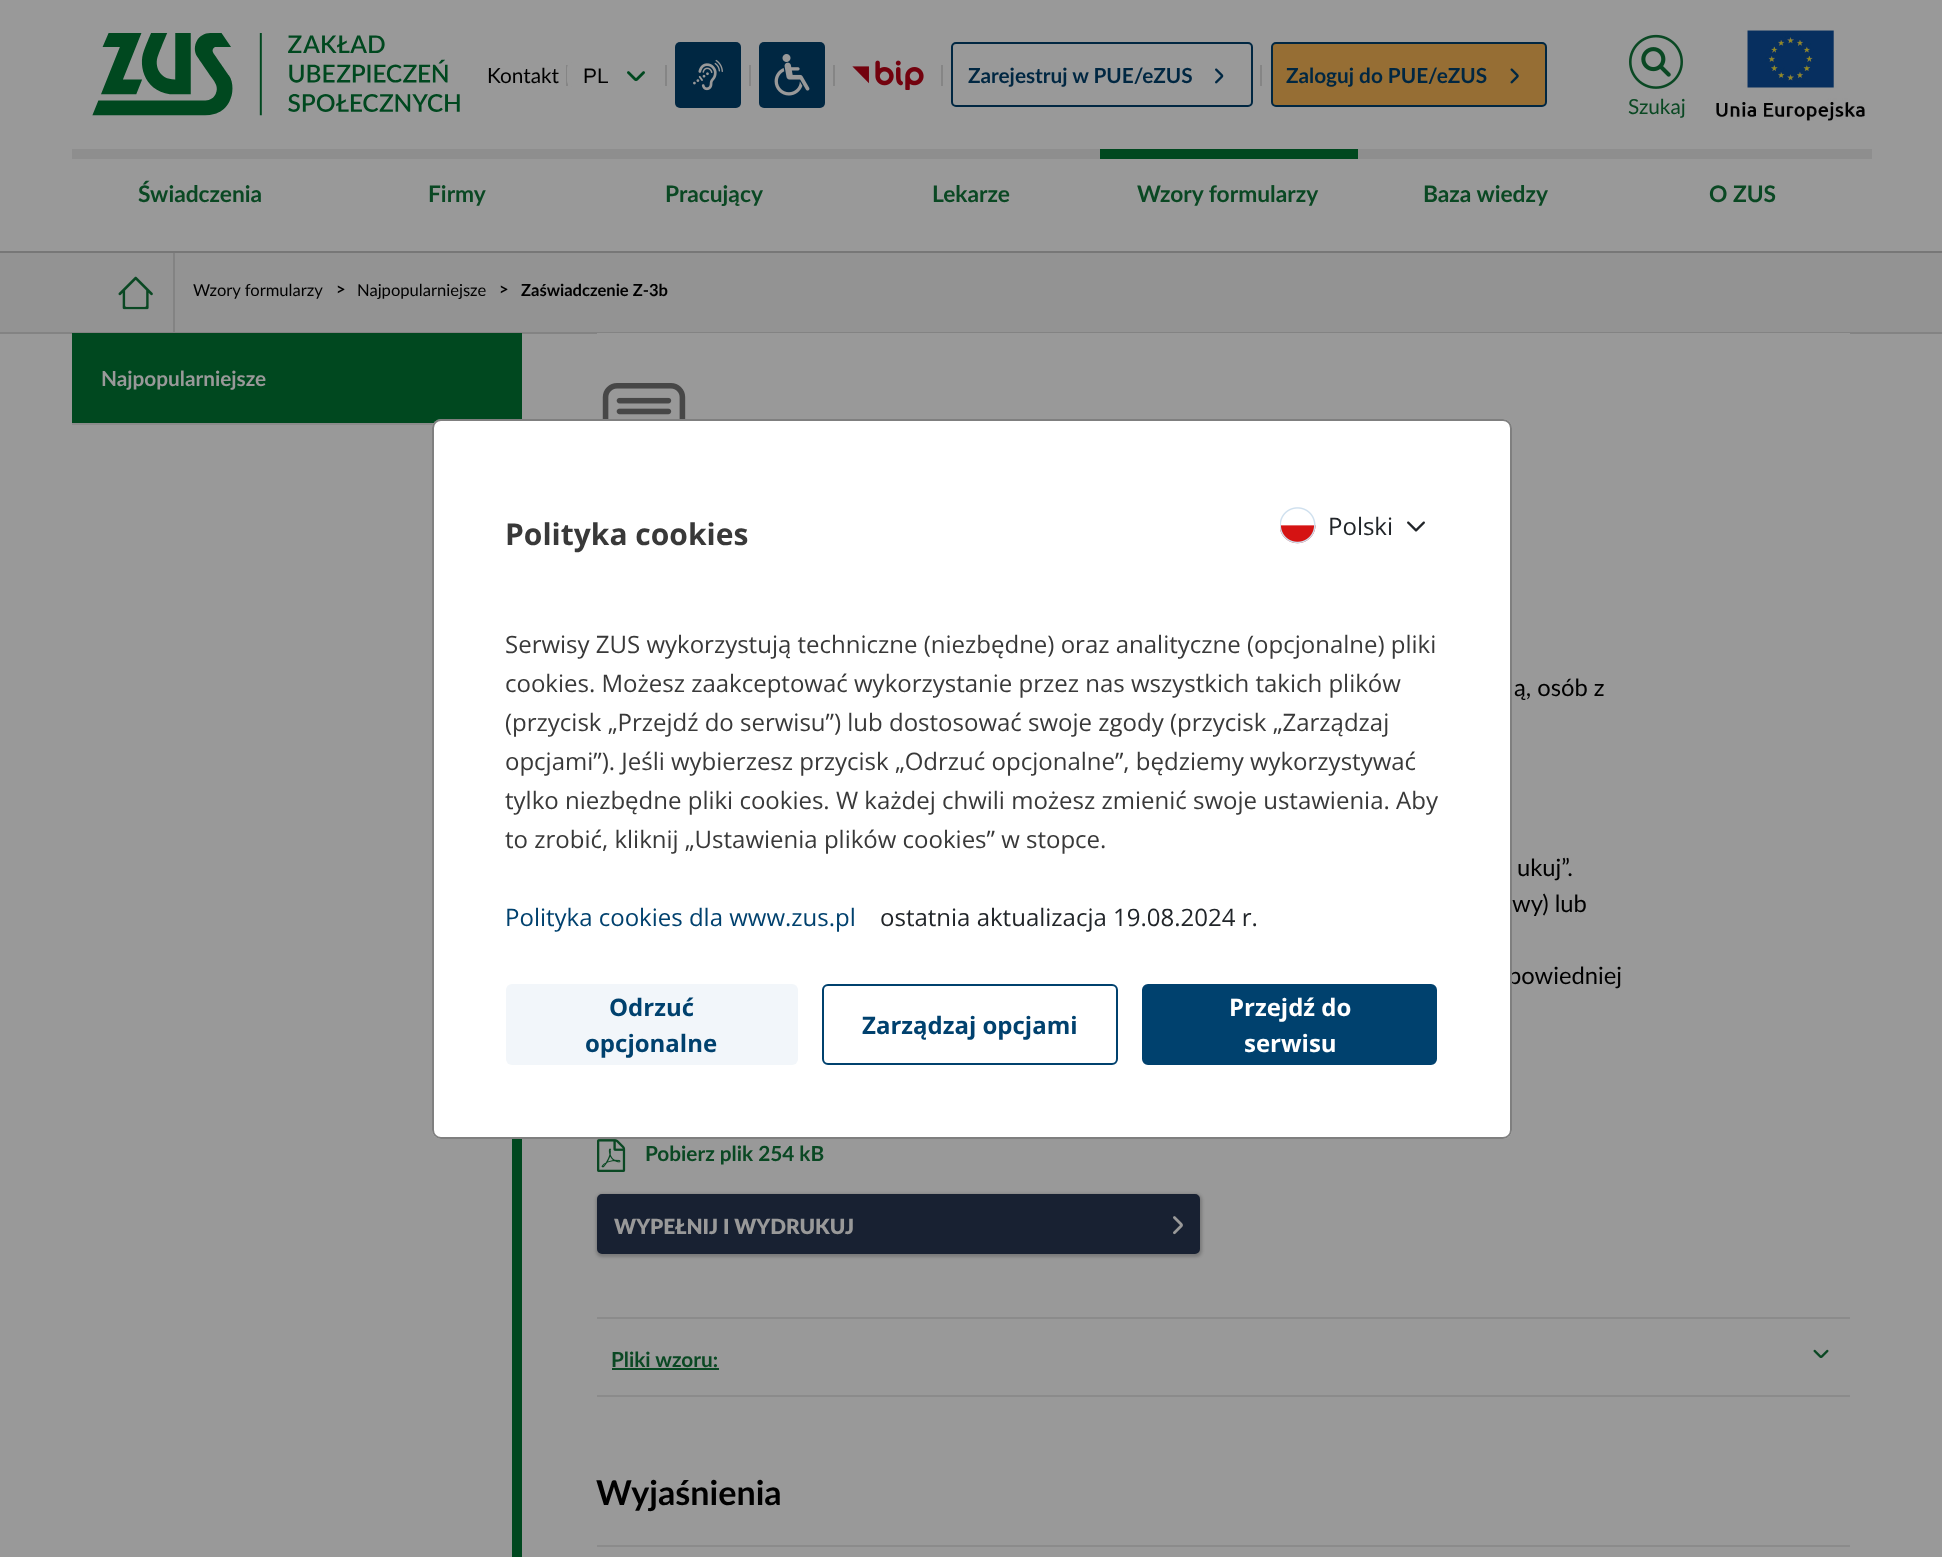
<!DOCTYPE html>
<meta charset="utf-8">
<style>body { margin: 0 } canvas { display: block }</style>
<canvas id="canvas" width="1942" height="1557"></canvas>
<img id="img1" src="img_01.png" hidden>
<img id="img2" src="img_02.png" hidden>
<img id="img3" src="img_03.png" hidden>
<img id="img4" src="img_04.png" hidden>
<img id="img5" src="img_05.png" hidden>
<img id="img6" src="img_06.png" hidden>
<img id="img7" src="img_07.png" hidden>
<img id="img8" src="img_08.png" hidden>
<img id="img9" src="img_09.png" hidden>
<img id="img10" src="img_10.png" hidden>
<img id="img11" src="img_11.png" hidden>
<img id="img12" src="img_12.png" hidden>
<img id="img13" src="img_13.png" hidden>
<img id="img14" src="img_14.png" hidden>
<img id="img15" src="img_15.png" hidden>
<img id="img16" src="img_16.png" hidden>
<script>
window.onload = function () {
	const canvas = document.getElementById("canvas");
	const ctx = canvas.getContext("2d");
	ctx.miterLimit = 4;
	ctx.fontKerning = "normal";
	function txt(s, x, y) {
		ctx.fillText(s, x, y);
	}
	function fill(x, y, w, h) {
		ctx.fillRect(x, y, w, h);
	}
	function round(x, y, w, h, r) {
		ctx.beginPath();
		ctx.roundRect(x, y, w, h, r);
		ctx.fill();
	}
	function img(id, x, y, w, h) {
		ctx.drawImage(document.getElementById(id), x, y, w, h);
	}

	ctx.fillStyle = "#999999";
	fill(0, 0, 1942, 1557);
	img("img1", 92, 33, 368, 83);
	ctx.fillStyle = "#858585";
	fill(566, 65, 2, 21);
	ctx.fillStyle = "#999999";
	round(567, 62, 98, 25, 6);
	img("img2", 627, 71, 18, 11);
	ctx.fillStyle = "#858585";
	fill(665, 65, 2, 21);
	ctx.fillStyle = "#002742";
	round(675, 42, 66, 66, 5);
	img("img3", 693, 59, 30, 32);
	ctx.fillStyle = "#858585";
	fill(749, 65, 2, 21);
	ctx.fillStyle = "#002742";
	round(759, 42, 66, 66, 5);
	img("img4", 774, 54, 36, 42);
	ctx.fillStyle = "#858585";
	fill(833, 65, 2, 21);
	img("img5", 852, 60, 72, 30);
	fill(941, 65, 2, 21);
	ctx.beginPath();
	ctx.roundRect(952, 43, 300, 63, 4);
	ctx.strokeStyle = "#002742";
	ctx.lineWidth = 2;
	ctx.stroke();
	img("img6", 1215, 68, 9, 16);
	fill(1260, 65, 2, 21);
	ctx.fillStyle = "#966E34";
	ctx.beginPath();
	ctx.roundRect(1272, 43, 274, 63, 4);
	ctx.fill();
	ctx.stroke();
	img("img7", 1510, 68, 9, 16);
	img("img8", 1629, 34, 54, 55);
	img("img9", 1716, 30, 149, 91);
	ctx.fillStyle = "#8E8E8E";
	fill(72, 149, 1028, 10);
	ctx.fillStyle = "#00481F";
	fill(1100, 149, 258, 10);
	ctx.fillStyle = "#8E8E8E";
	fill(1358, 149, 514, 10);
	ctx.fillStyle = "#939393";
	fill(0, 253, 1942, 79);
	ctx.fillStyle = "#838383";
	fill(173, 251, 2, 81);
	ctx.fillStyle = "#777777";
	fill(0, 251, 1942, 2);
	ctx.fillStyle = "#838383";
	fill(0, 332, 1942, 2);
	img("img10", 118, 276, 35, 34);
	ctx.fillStyle = "#00481F";
	fill(512, 333, 10, 1224);
	fill(72, 333, 440, 90);
	ctx.fillStyle = "#8B8B8B";
	fill(72, 423, 362, 2);
	ctx.fillStyle = "#999999";
	fill(597, 333, 1253, 1);
	img("img11", 602, 383, 84, 36);
	img("img12", 597, 1139, 29, 33);
	ctx.fillStyle = "rgba(0, 0, 0, 0.2)";
	ctx.filter = "blur(1.5px)";
	ctx.beginPath();
	ctx.roundRect(596, 1194, 606, 63, 6);
	ctx.fill();
	ctx.filter = "none";
	ctx.fillStyle = "#182132";
	ctx.beginPath();
	ctx.roundRect(598.5, 1195.5, 600, 57, 3.5);
	ctx.fill();
	ctx.strokeStyle = "#182132";
	ctx.lineWidth = 3;
	ctx.stroke();
	img("img13", 1173, 1216, 10, 19);
	ctx.fillStyle = "#8B8B8B";
	fill(597, 1317, 1253, 2);
	fill(597, 1395, 1253, 2);
	ctx.fillStyle = "#0A4823";
	fill(612, 1368, 107, 2);
	img("img14", 1813, 1349, 16, 9);
	ctx.fillStyle = "#8B8B8B";
	fill(597, 1545, 1253, 2);
	ctx.font = "21px Lato";
	ctx.fillStyle = "#000000";
	txt("Kontakt", 487, 83);
	ctx.font = "21px Liberation Sans";
	txt("PL", 583, 83);
	ctx.font = "bold 21px Lato";
	ctx.fillStyle = "#002742";
	txt("Zarejestruj w PUE/eZUS", 968, 83);
	txt("Zaloguj do PUE/eZUS", 1286, 83);
	ctx.font = "21px Lato";
	ctx.fillStyle = "#0A4823";
	txt("Szukaj", 1628, 114);
	ctx.font = "bold 23px Lato";
	txt("Świadczenia", 138, 202);
	txt("Firmy", 428, 202);
	txt("Pracujący", 665, 202);
	txt("Lekarze", 932, 202);
	txt("Wzory formularzy", 1137, 202);
	txt("Baza wiedzy", 1423, 202);
	txt("O ZUS", 1709, 202);
	ctx.font = "16.75px Lato";
	ctx.fillStyle = "#000000";
	txt("Wzory formularzy", 193, 296);
	ctx.font = "bold 16.75px Lato";
	txt(">", 336, 295);
	ctx.font = "16.75px Lato";
	txt("Najpopularniejsze", 357, 296);
	ctx.font = "bold 16.75px Lato";
	txt(">", 499, 295);
	txt("Zaświadczenie Z-3b", 521, 296);
	ctx.font = "bold 21px Lato";
	ctx.fillStyle = "#999999";
	txt("Najpopularniejsze", 101, 386);
	ctx.font = "24px Lato";
	ctx.fillStyle = "#000000";
	txt("ą, osób z", 1514, 696);
	txt("ukuj”.", 1517, 876);
	txt("wy) lub", 1512, 912);
	txt("powiedniej", 1508, 984);
	ctx.font = "bold 21px Lato";
	ctx.fillStyle = "#0A4823";
	txt("Pobierz plik 254 kB", 645, 1161);
	ctx.font = "900 21px Lato";
	ctx.fillStyle = "#999999";
	txt("WYPEŁNIJ I WYDRUKUJ", 614, 1234);
	ctx.font = "bold 21px Lato";
	ctx.fillStyle = "#0A4823";
	txt("Pliki wzoru:", 611, 1367);
	ctx.font = "bold 34.5px Lato";
	ctx.fillStyle = "#000000";
	txt("Wyjaśnienia", 596, 1505);
	ctx.fillStyle = "#FFFFFF";
	round(432, 419, 1080, 720, 9);
	ctx.beginPath();
	ctx.roundRect(433, 420, 1078, 718, 8);
	ctx.strokeStyle = "rgba(0, 0, 0, 0.5)";
	ctx.lineWidth = 2;
	ctx.stroke();
	ctx.font = "bold 30px Open Sans";
	ctx.fillStyle = "#393939";
	txt("Polityka cookies", 505, 545);
	img("img15", 1280, 507, 36, 37);
	ctx.font = "24px Open Sans";
	ctx.fillStyle = "#212529";
	txt("Polski", 1328, 535);
	img("img16", 1407, 521, 18, 11);
	ctx.fillStyle = "#393939";
	txt("Serwisy ZUS wykorzystują techniczne (niezbędne) oraz analityczne (opcjonalne) pliki", 505, 653);
	txt("cookies. Możesz zaakceptować wykorzystanie przez nas wszystkich takich plików", 505, 692);
	txt("(przycisk „Przejdź do serwisu”) lub dostosować swoje zgody (przycisk „Zarządzaj", 505, 731);
	txt("opcjami”). Jeśli wybierzesz przycisk „Odrzuć opcjonalne”, będziemy wykorzystywać", 505, 770);
	txt("tylko niezbędne pliki cookies. W każdej chwili możesz zmienić swoje ustawienia. Aby", 505, 809);
	txt("to zrobić, kliknij „Ustawienia plików cookies” w stopce.", 505, 848);
	ctx.fillStyle = "#00416E";
	txt("Polityka cookies dla www.zus.pl", 505, 926);
	ctx.fillStyle = "#212529";
	txt("ostatnia aktualizacja 19.08.2024 r.", 880, 926);
	ctx.fillStyle = "#F2F6FA";
	round(506, 984, 292, 81, 6);
	ctx.font = "bold 24px Open Sans";
	ctx.fillStyle = "#00416E";
	txt("Odrzuć", 609, 1016);
	txt("opcjonalne", 585, 1052);
	ctx.beginPath();
	ctx.roundRect(823, 985, 294, 79, 5);
	ctx.strokeStyle = "#00416E";
	ctx.stroke();
	txt("Zarządzaj opcjami", 862, 1034);
	ctx.beginPath();
	ctx.roundRect(1143, 985, 293, 79, 5);
	ctx.fill();
	ctx.stroke();
	ctx.fillStyle = "#FFFFFF";
	txt("Przejdź do", 1229, 1016);
	txt("serwisu", 1244, 1052);
};
</script>
